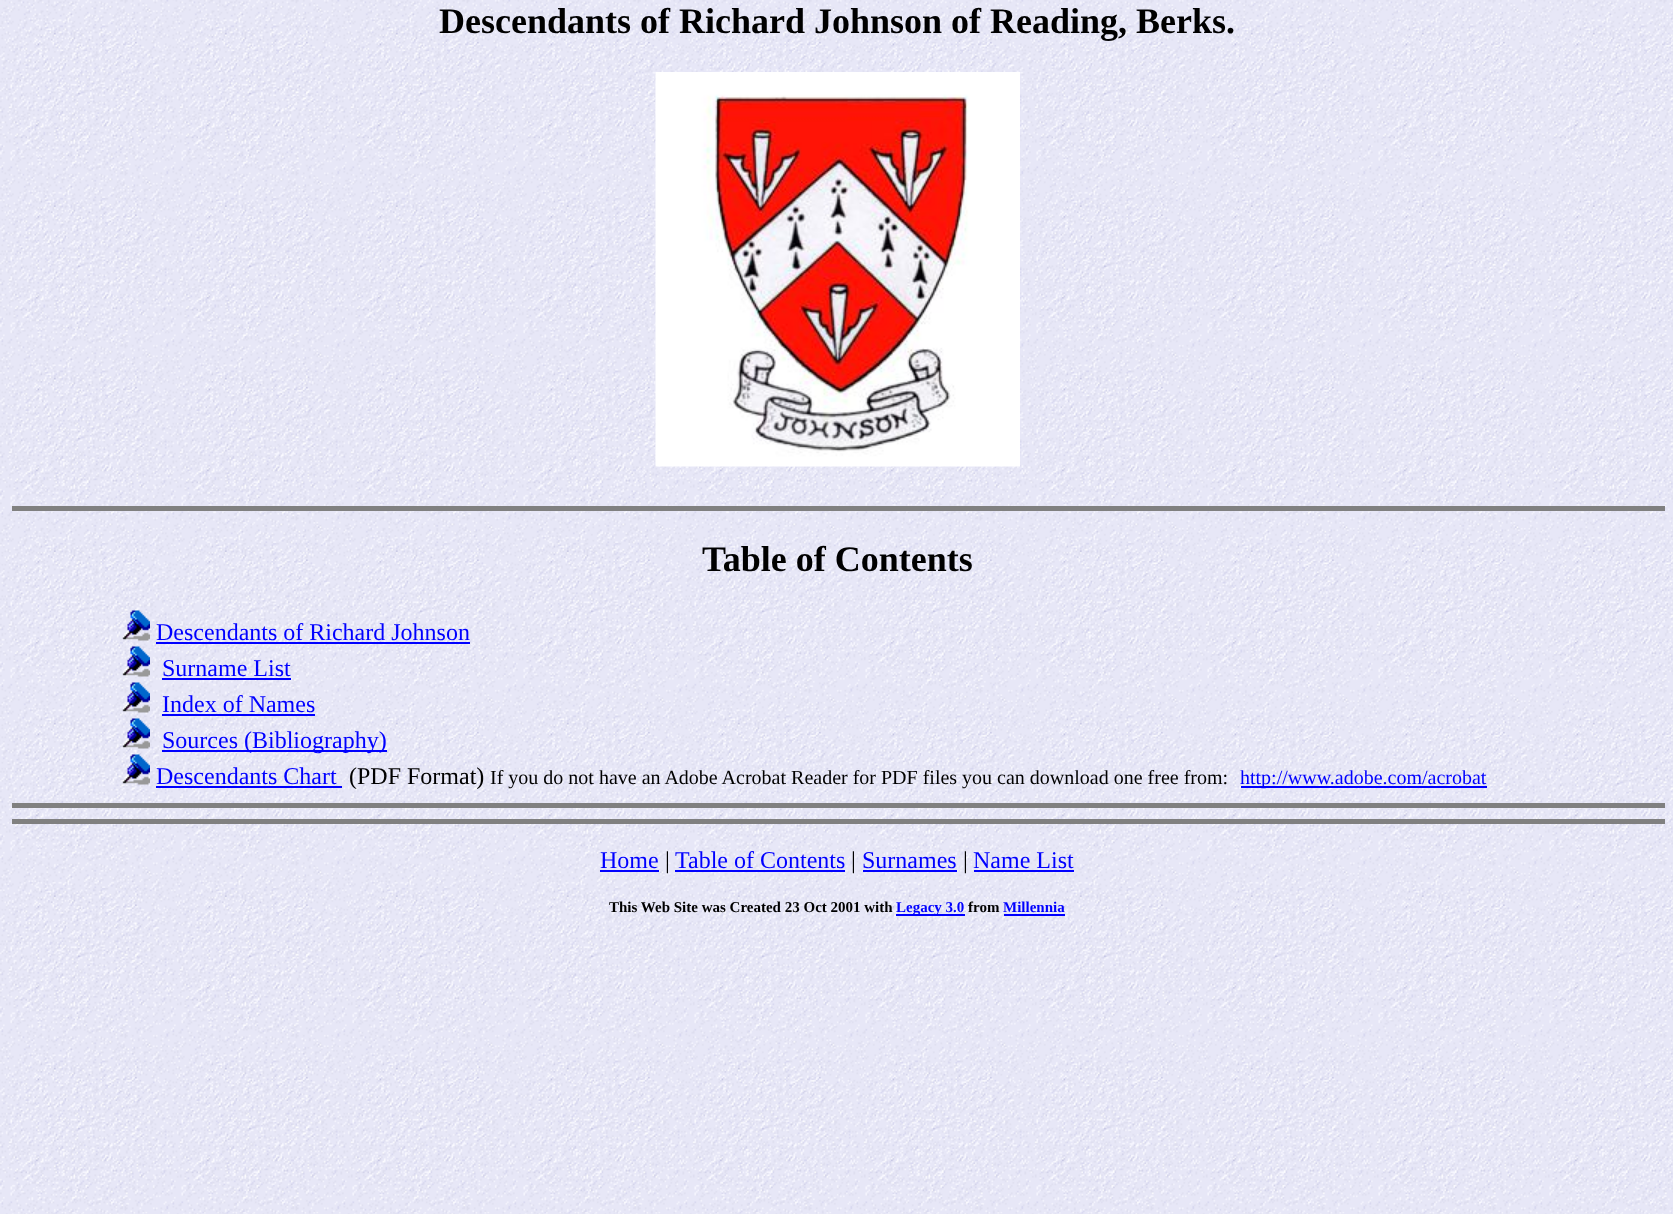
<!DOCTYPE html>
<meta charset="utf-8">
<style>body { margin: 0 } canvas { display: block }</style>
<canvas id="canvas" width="1673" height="1214"></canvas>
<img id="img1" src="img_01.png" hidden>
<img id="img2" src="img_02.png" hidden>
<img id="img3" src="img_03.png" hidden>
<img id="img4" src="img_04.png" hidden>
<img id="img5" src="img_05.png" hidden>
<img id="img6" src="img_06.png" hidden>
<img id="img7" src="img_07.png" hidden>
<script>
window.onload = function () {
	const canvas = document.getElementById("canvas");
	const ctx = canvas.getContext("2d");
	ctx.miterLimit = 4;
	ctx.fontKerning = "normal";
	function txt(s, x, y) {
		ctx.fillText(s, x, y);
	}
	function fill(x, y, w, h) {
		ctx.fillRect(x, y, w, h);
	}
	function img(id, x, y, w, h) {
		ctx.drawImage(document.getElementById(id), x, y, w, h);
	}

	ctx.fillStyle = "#FFFFFF";
	fill(0, 0, 1673, 1214);
	img("img1", 0, 0, 1673, 1214);
	img("img2", 655, 72, 365, 395);
	ctx.fillStyle = "#808080";
	fill(12, 506, 1653, 5);
	img("img3", 122, 610, 28, 31);
	ctx.fillStyle = "#0000FF";
	fill(156, 642, 314, 2);
	img("img4", 122, 646, 28, 31);
	fill(162, 678, 129, 2);
	img("img5", 122, 682, 28, 31);
	fill(162, 714, 153, 2);
	img("img6", 122, 718, 28, 31);
	fill(162, 750, 225, 2);
	img("img7", 122, 754, 28, 31);
	fill(156, 786, 186, 2);
	fill(1241, 786, 246, 2);
	ctx.fillStyle = "#808080";
	fill(12, 803, 1653, 5);
	fill(12, 819, 1653, 5);
	ctx.fillStyle = "#0000FF";
	fill(600, 870, 59, 2);
	fill(675, 870, 170, 2);
	fill(863, 870, 94, 2);
	fill(974, 870, 100, 2);
	fill(896, 914, 69, 2);
	fill(1004, 914, 61, 2);
	ctx.font = "bold 36px Liberation Serif";
	ctx.fillStyle = "#000000";
	txt("Descendants of Richard Johnson of Reading, Berks.", 439, 33);
	txt("Table of Contents", 702, 571);
	ctx.font = "24px Liberation Serif";
	ctx.fillStyle = "#0000FF";
	txt("Descendants of Richard Johnson", 156, 640);
	txt("Surname List", 162, 676);
	txt("Index of Names", 162, 712);
	txt("Sources (Bibliography)", 162, 748);
	txt("Descendants Chart", 156, 784);
	ctx.fillStyle = "#000000";
	txt("(PDF Format)", 349, 784);
	ctx.font = "20px Liberation Serif";
	txt("If you do not have an Adobe Acrobat Reader for PDF files you can download one free from:", 490, 784);
	ctx.fillStyle = "#0000FF";
	txt("http://www.adobe.com/acrobat", 1240, 784);
	ctx.font = "24px Liberation Serif";
	txt("Home", 600, 868);
	ctx.fillStyle = "#000000";
	txt("|", 665, 868);
	ctx.fillStyle = "#0000FF";
	txt("Table of Contents", 675, 868);
	ctx.fillStyle = "#000000";
	txt("|", 851, 868);
	ctx.fillStyle = "#0000FF";
	txt("Surnames", 862, 868);
	ctx.fillStyle = "#000000";
	txt("|", 963, 868);
	ctx.fillStyle = "#0000FF";
	txt("Name List", 973, 868);
	ctx.font = "bold 15px Liberation Serif";
	ctx.fillStyle = "#000000";
	txt("This Web Site was Created 23 Oct 2001 with", 609, 912);
	ctx.fillStyle = "#0000FF";
	txt("Legacy 3.0", 896, 912);
	ctx.fillStyle = "#000000";
	txt("from", 968, 912);
	ctx.fillStyle = "#0000FF";
	txt("Millennia", 1003, 912);
};
</script>
